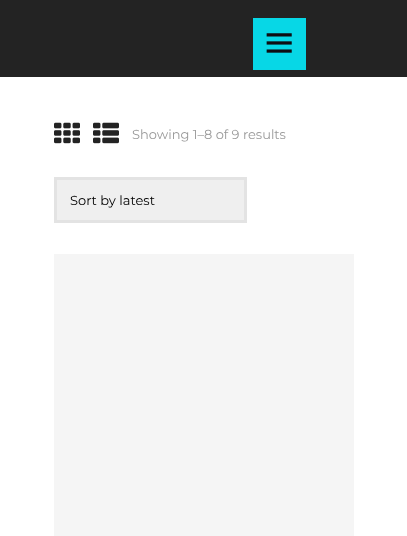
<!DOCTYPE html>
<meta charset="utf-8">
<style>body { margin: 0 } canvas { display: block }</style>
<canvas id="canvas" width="407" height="536"></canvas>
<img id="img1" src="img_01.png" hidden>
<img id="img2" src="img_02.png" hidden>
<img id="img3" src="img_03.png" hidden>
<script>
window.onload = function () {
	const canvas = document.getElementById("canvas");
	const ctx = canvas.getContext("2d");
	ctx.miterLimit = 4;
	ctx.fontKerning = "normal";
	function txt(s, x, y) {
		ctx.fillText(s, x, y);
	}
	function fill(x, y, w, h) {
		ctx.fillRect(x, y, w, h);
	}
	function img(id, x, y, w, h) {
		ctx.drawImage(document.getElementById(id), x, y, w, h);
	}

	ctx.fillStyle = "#FFFFFF";
	fill(0, 0, 407, 536);
	ctx.fillStyle = "#232323";
	fill(0, 0, 407, 77);
	ctx.fillStyle = "#07D7E6";
	fill(253, 18, 53, 52);
	img("img1", 266, 33, 26, 20);
	img("img2", 54, 122, 26, 22);
	img("img3", 93, 122, 26, 22);
	ctx.fillStyle = "#EFEFEF";
	ctx.beginPath();
	ctx.rect(55.5, 178.5, 190, 43);
	ctx.fill();
	ctx.strokeStyle = "#E3E3E3";
	ctx.lineWidth = 3;
	ctx.stroke();
	ctx.fillStyle = "#F5F5F5";
	fill(54, 254, 300, 282);
	ctx.font = "13px Montserrat";
	ctx.fillStyle = "#9A9A9A";
	txt("Showing 1–8 of 9 results", 132, 139);
	ctx.fillStyle = "#000000";
	txt("Sort by latest", 70, 205);
};
</script>
